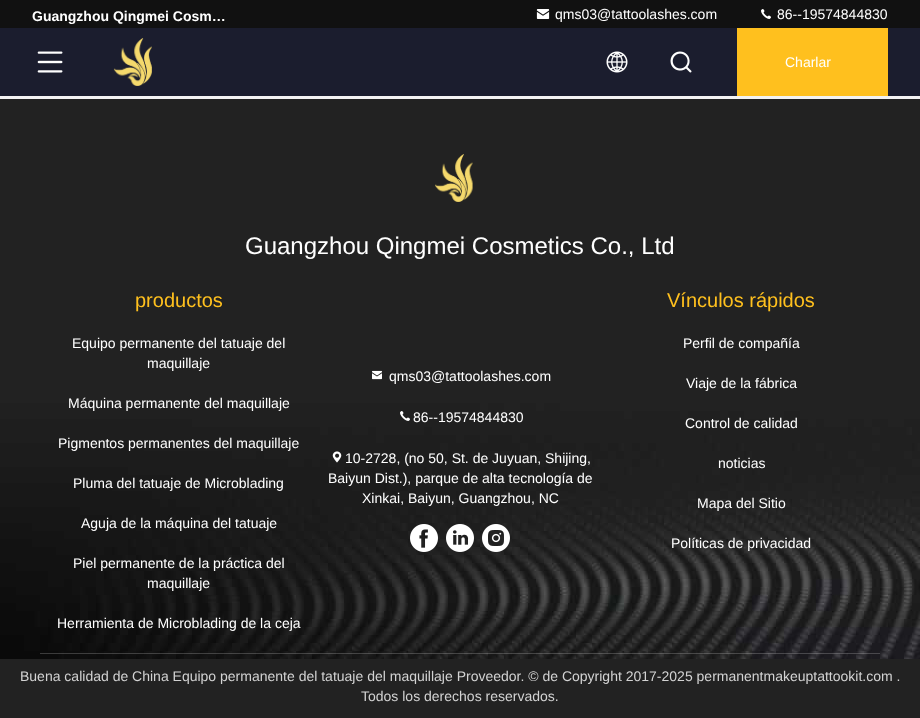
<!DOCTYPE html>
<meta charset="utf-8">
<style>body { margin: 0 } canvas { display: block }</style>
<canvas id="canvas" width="920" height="718"></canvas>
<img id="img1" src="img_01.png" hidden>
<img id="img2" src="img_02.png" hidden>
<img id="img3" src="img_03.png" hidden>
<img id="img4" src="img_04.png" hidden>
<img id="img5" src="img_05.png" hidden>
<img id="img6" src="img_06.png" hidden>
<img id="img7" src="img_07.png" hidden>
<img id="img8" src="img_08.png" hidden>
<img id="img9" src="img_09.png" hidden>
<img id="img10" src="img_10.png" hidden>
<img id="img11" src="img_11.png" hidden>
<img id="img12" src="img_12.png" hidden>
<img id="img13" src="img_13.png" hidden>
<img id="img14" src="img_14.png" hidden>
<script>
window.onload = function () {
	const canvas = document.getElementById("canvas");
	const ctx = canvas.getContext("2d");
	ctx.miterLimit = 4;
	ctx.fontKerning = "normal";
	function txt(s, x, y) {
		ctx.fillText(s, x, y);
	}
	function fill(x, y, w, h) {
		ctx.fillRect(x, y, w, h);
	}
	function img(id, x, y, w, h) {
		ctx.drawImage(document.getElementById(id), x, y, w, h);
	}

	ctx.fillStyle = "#F3F3F3";
	fill(0, 0, 920, 718);
	ctx.fillStyle = "#111111";
	fill(0, 0, 920, 28);
	img("img1", 536, 9, 14, 10);
	img("img2", 761, 9, 10, 10);
	ctx.fillStyle = "#1B1D2E";
	fill(0, 28, 920, 68);
	img("img3", 37, 51, 26, 22);
	img("img4", 113, 38, 39, 48);
	img("img5", 606, 51, 22, 22);
	img("img6", 670, 51, 22, 22);
	ctx.fillStyle = "#FFC01E";
	fill(737, 28, 151, 68);
	img("img7", 0, 99, 920, 619);
	img("img8", 435, 154, 38, 48);
	ctx.fillStyle = "rgba(255, 255, 255, 0.2)";
	fill(40, 653, 840, 1);
	img("img9", 372, 370, 10, 10);
	img("img10", 400, 411, 10, 10);
	img("img11", 332, 451, 10, 12);
	img("img12", 410, 524, 28, 28);
	img("img13", 446, 524, 28, 28);
	img("img14", 482, 524, 28, 28);
	ctx.font = "bold 14px Liberation Sans";
	ctx.fillStyle = "#FFFFFF";
	txt("Guangzhou Qingmei Cosm…", 32, 21);
	ctx.font = "14px Liberation Sans";
	txt("qms03@tattoolashes.com", 555, 19);
	txt("86--19574844830", 777, 19);
	txt("Charlar", 785, 67);
	ctx.font = "24px Liberation Sans";
	txt("Guangzhou Qingmei Cosmetics Co., Ltd", 245, 254);
	ctx.font = "20px Liberation Sans";
	ctx.fillStyle = "#FFC01E";
	txt("productos", 135, 307);
	ctx.font = "14px Liberation Sans";
	ctx.fillStyle = "#FFFFFF";
	txt("Equipo permanente del tatuaje del", 72, 348);
	txt("maquillaje", 147, 368);
	txt("Máquina permanente del maquillaje", 68, 408);
	txt("Pigmentos permanentes del maquillaje", 58, 448);
	txt("Pluma del tatuaje de Microblading", 73, 488);
	txt("Aguja de la máquina del tatuaje", 81, 528);
	txt("Piel permanente de la práctica del", 73, 568);
	txt("maquillaje", 147, 588);
	txt("Herramienta de Microblading de la ceja", 57, 628);
	txt("qms03@tattoolashes.com", 389, 381);
	txt("86--19574844830", 413, 422);
	txt("10-2728, (no 50, St. de Juyuan, Shijing,", 345, 463);
	txt("Baiyun Dist.), parque de alta tecnología de", 328, 483);
	txt("Xinkai, Baiyun, Guangzhou, NC", 362, 503);
	ctx.font = "20px Liberation Sans";
	ctx.fillStyle = "#FFC01E";
	txt("Vínculos rápidos", 667, 307);
	ctx.font = "14px Liberation Sans";
	ctx.fillStyle = "#FFFFFF";
	txt("Perfil de compañía", 683, 348);
	txt("Viaje de la fábrica", 686, 388);
	txt("Control de calidad", 685, 428);
	txt("noticias", 718, 468);
	txt("Mapa del Sitio", 697, 508);
	txt("Políticas de privacidad", 671, 548);
	ctx.fillStyle = "#D3D3D3";
	txt("Buena calidad de China Equipo permanente del tatuaje del maquillaje Proveedor. © de Copyright 2017-2025 permanentmakeuptattookit.com .", 20, 681);
	txt("Todos los derechos reservados.", 361, 701);
};
</script>
